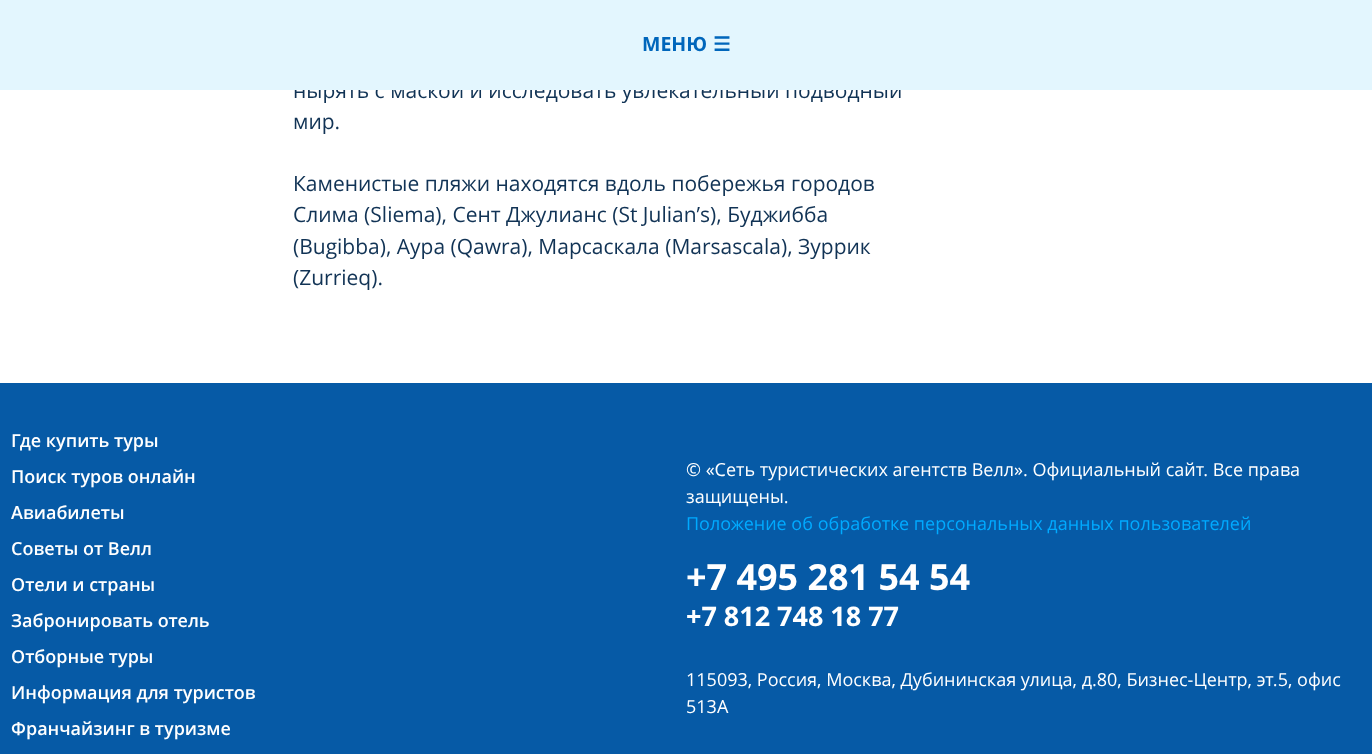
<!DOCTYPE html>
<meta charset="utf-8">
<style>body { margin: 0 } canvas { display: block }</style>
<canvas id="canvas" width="1372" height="754"></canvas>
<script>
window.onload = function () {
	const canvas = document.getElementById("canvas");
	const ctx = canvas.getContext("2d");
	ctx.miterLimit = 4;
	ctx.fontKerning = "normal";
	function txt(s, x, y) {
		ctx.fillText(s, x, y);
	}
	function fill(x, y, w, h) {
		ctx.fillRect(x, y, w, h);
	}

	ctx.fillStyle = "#FFFFFF";
	fill(0, 0, 1372, 754);
	ctx.fillStyle = "#065AA6";
	fill(0, 383, 1372, 371);
	ctx.font = "21px Open Sans";
	ctx.fillStyle = "#113355";
	txt("нырять с маской и исследовать увлекательный подводный", 293, 98);
	ctx.fillStyle = "#E3F6FE";
	fill(0, 0, 1372, 90);
	ctx.font = "bold 19.5px DejaVu Sans";
	ctx.fillStyle = "#0066BB";
	txt("☰", 713, 51);
	ctx.font = "bold 19.5px Open Sans";
	txt("МЕНЮ", 642, 51);
	ctx.font = "21px Open Sans";
	ctx.fillStyle = "#113355";
	txt("мир.", 293, 129);
	txt("Каменистые пляжи находятся вдоль побережья городов", 293, 191);
	txt("Слима (Sliema), Сент Джулианс (St Julian’s), Буджибба", 293, 222);
	txt("(Bugibba), Аура (Qawra), Марсаскала (Marsascala), Зуррик", 293, 254);
	txt("(Zurrieq).", 293, 285);
	ctx.font = "600 18px Open Sans";
	ctx.fillStyle = "#FFFFFF";
	txt("Где купить туры", 11, 447);
	txt("Поиск туров онлайн", 11, 483);
	txt("Авиабилеты", 11, 519);
	txt("Советы от Велл", 11, 555);
	txt("Отели и страны", 11, 591);
	txt("Забронировать отель", 11, 627);
	txt("Отборные туры", 11, 663);
	txt("Информация для туристов", 11, 699);
	txt("Франчайзинг в туризме", 11, 735);
	ctx.font = "18px 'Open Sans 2'";
	txt("© «Сеть туристических агентств Велл». Официальный сайт. Все права", 686, 476);
	txt("защищены.", 686, 503);
	ctx.fillStyle = "#00AAFF";
	txt("Положение об обработке персональных данных пользователей", 686, 530);
	ctx.font = "bold 36px Open Sans";
	ctx.fillStyle = "#FFFFFF";
	txt("+7 495 281 54 54", 686, 590);
	ctx.font = "bold 27px Open Sans";
	txt("+7 812 748 18 77", 686, 626);
	ctx.font = "18px 'Open Sans 2'";
	txt("115093, Россия, Москва, Дубининская улица, д.80, Бизнес-Центр, эт.5, офис", 686, 686);
	txt("513А", 686, 713);
};
</script>
